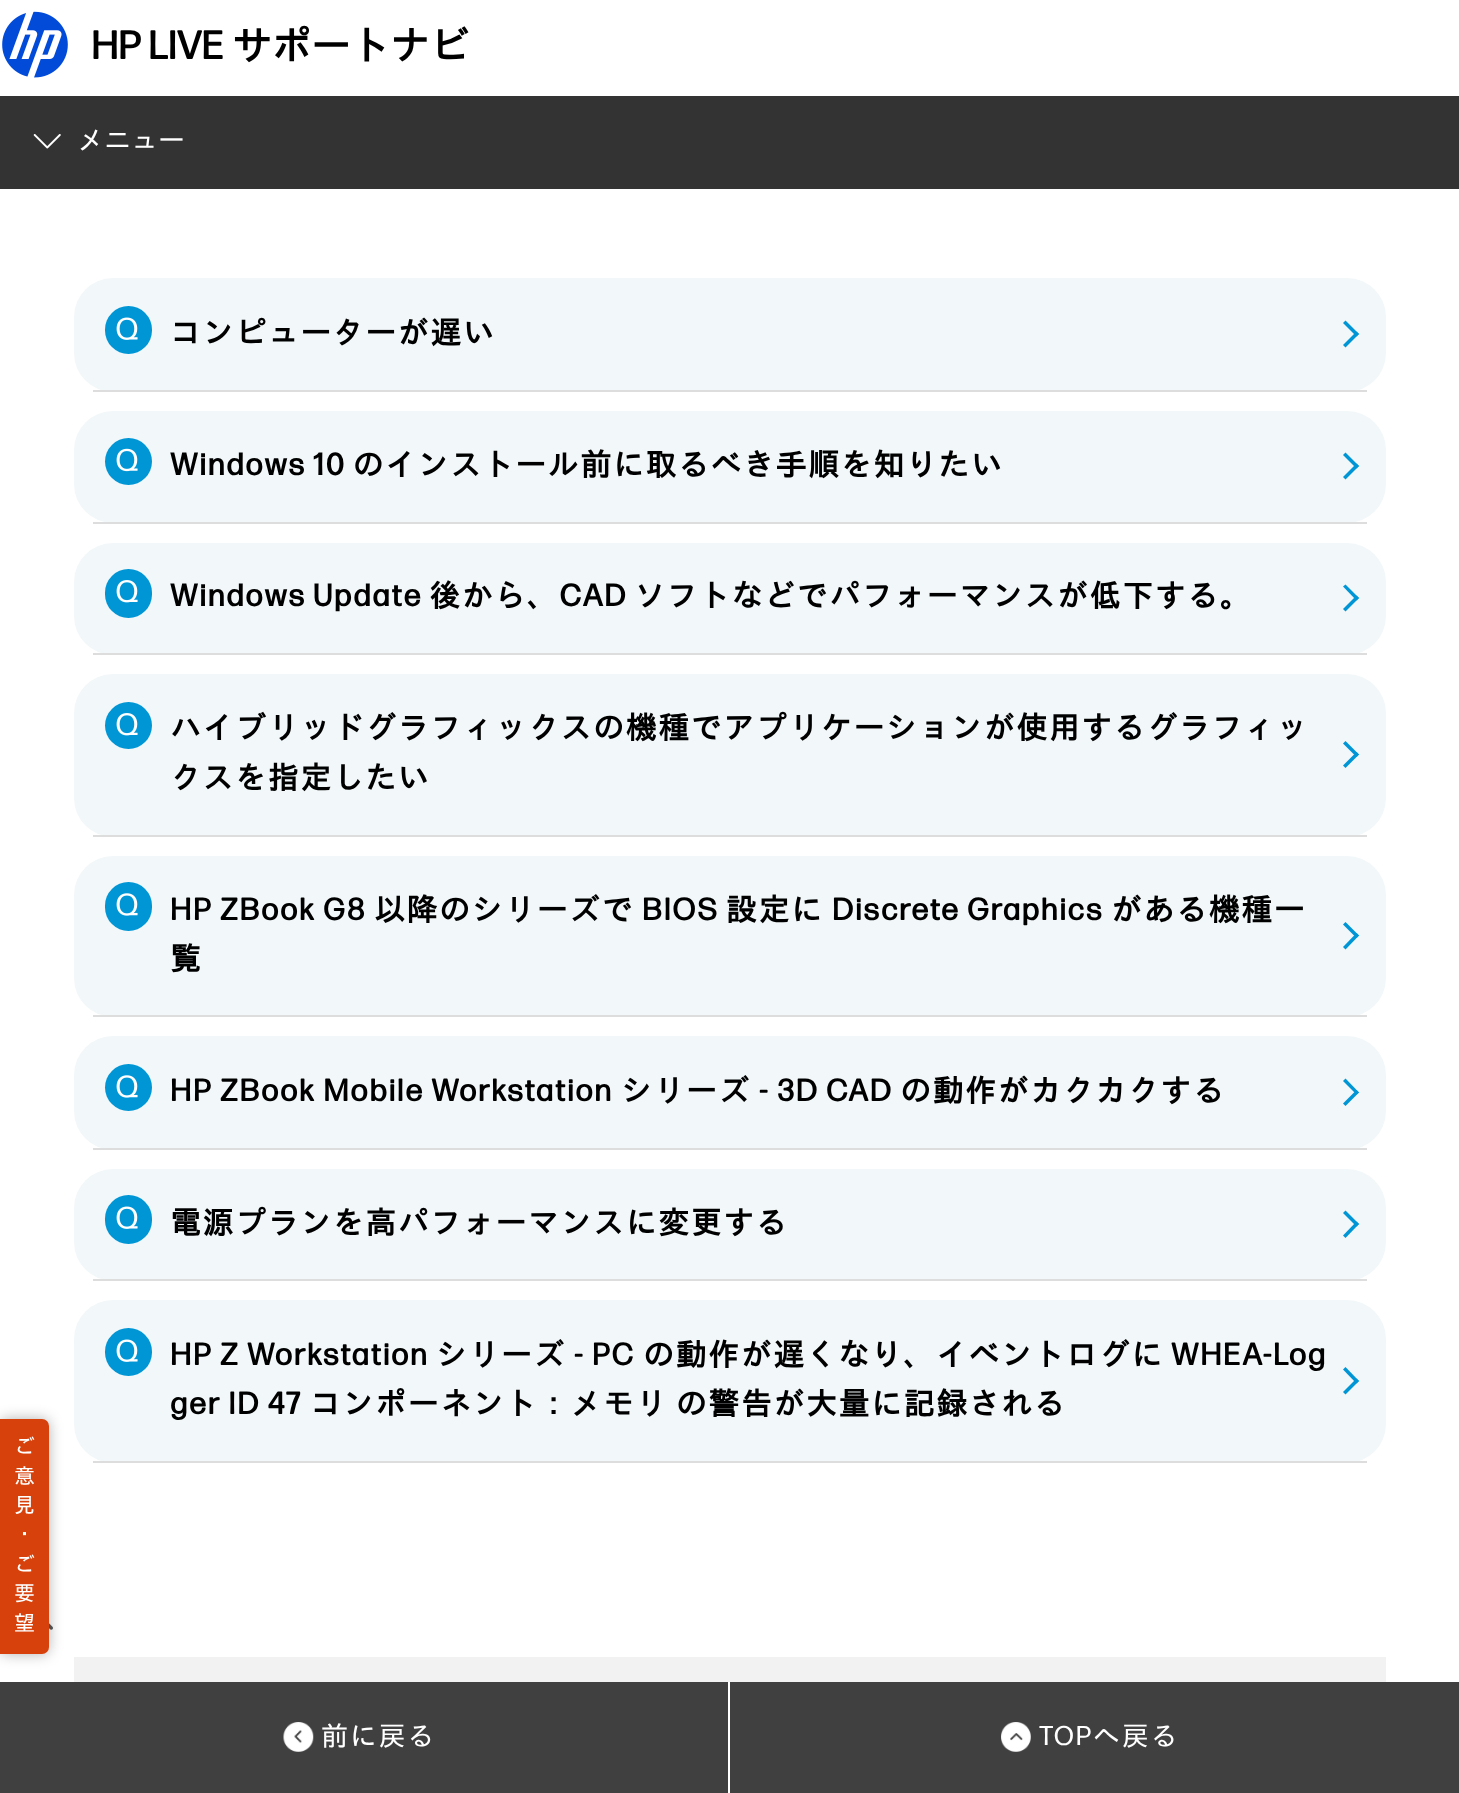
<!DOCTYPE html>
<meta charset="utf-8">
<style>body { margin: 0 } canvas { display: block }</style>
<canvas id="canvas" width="1459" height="1793"></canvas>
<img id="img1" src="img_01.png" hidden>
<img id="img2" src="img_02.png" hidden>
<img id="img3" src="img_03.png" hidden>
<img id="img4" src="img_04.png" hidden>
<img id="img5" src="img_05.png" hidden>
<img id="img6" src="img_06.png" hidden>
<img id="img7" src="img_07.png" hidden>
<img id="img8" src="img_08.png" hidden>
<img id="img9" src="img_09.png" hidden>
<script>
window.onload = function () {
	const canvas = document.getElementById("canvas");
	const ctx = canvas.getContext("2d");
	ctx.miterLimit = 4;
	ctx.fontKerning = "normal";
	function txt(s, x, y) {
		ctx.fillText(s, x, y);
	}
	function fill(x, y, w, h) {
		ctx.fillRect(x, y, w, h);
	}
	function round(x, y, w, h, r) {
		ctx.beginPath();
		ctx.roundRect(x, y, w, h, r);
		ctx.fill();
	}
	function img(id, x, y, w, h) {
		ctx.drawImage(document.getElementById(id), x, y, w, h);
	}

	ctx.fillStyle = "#FFFFFF";
	fill(0, 0, 1459, 1793);
	img("img1", 2, 11, 66, 67);
	ctx.fillStyle = "#333333";
	fill(0, 96, 1459, 93);
	img("img2", 33, 134, 28, 15);
	ctx.fillStyle = "#F2F7F9";
	round(74, 278, 1312, 114, 39);
	ctx.fillStyle = "#DDDDDD";
	fill(93, 390, 1274, 2);
	ctx.fillStyle = "#0096D6";
	round(105, 306, 47, 48, 23.5);
	img("img3", 116, 317, 22, 23);
	ctx.beginPath();
	ctx.moveTo(1345.5, 320.5);
	ctx.lineTo(1359, 334);
	ctx.lineTo(1356.5, 336.5);
	ctx.lineTo(1343, 323);
	ctx.closePath();
	ctx.fill();
	ctx.beginPath();
	ctx.moveTo(1356.5, 331.5);
	ctx.lineTo(1359, 334);
	ctx.lineTo(1345.5, 347.5);
	ctx.lineTo(1343, 345);
	ctx.closePath();
	ctx.fill();
	ctx.fillStyle = "#F2F7F9";
	round(74, 411, 1312, 112, 39);
	ctx.fillStyle = "#DDDDDD";
	fill(93, 522, 1274, 2);
	ctx.fillStyle = "#0096D6";
	ctx.beginPath();
	ctx.arc(128.5, 461.5, 23.5, 0, Math.PI * 2);
	ctx.fill();
	img("img4", 116, 448, 22, 24);
	ctx.beginPath();
	ctx.moveTo(1345.5, 452.5);
	ctx.lineTo(1359, 466);
	ctx.lineTo(1356.5, 468.5);
	ctx.lineTo(1343, 455);
	ctx.closePath();
	ctx.fill();
	ctx.beginPath();
	ctx.moveTo(1356.5, 463.5);
	ctx.lineTo(1359, 466);
	ctx.lineTo(1345.5, 479.5);
	ctx.lineTo(1343, 477);
	ctx.closePath();
	ctx.fill();
	ctx.fillStyle = "#F2F7F9";
	round(74, 543, 1312, 112, 39);
	ctx.fillStyle = "#DDDDDD";
	fill(93, 653, 1274, 2);
	ctx.fillStyle = "#0096D6";
	round(105, 569, 47, 49, 23.5);
	img("img5", 116, 580, 22, 23);
	ctx.beginPath();
	ctx.moveTo(1345.5, 584.5);
	ctx.lineTo(1359, 598);
	ctx.lineTo(1356.5, 600.5);
	ctx.lineTo(1343, 586.5);
	ctx.closePath();
	ctx.fill();
	ctx.beginPath();
	ctx.moveTo(1356.5, 595.5);
	ctx.lineTo(1359, 598);
	ctx.lineTo(1345.5, 611.5);
	ctx.lineTo(1343, 609);
	ctx.closePath();
	ctx.fill();
	ctx.fillStyle = "#F2F7F9";
	round(74, 674, 1312, 163, 39);
	ctx.fillStyle = "#DDDDDD";
	fill(93, 835, 1274, 2);
	ctx.fillStyle = "#0096D6";
	ctx.beginPath();
	ctx.arc(128.5, 725.5, 23.5, 0, Math.PI * 2);
	ctx.fill();
	img("img5", 116, 713, 22, 23);
	ctx.beginPath();
	ctx.moveTo(1345.5, 741);
	ctx.lineTo(1359, 754.5);
	ctx.lineTo(1356.5, 757);
	ctx.lineTo(1343, 743.5);
	ctx.closePath();
	ctx.fill();
	ctx.beginPath();
	ctx.moveTo(1356.5, 752);
	ctx.lineTo(1359, 754.5);
	ctx.lineTo(1345.5, 768);
	ctx.lineTo(1343, 765.5);
	ctx.closePath();
	ctx.fill();
	ctx.fillStyle = "#F2F7F9";
	round(74, 856, 1312, 161, 39);
	ctx.fillStyle = "#DDDDDD";
	fill(93, 1015, 1274, 2);
	ctx.fillStyle = "#0096D6";
	round(105, 882, 47, 49, 23.5);
	img("img6", 116, 893, 22, 23);
	ctx.beginPath();
	ctx.moveTo(1345.5, 922);
	ctx.lineTo(1359, 935.5);
	ctx.lineTo(1356.5, 938);
	ctx.lineTo(1343, 924.5);
	ctx.closePath();
	ctx.fill();
	ctx.beginPath();
	ctx.moveTo(1356.5, 933);
	ctx.lineTo(1359, 935.5);
	ctx.lineTo(1345.5, 949.5);
	ctx.lineTo(1343, 947);
	ctx.closePath();
	ctx.fill();
	ctx.fillStyle = "#F2F7F9";
	round(74, 1036, 1312, 114, 39);
	ctx.fillStyle = "#DDDDDD";
	fill(93, 1148, 1274, 2);
	ctx.fillStyle = "#0096D6";
	ctx.beginPath();
	ctx.arc(128.5, 1087.5, 23.5, 0, Math.PI * 2);
	ctx.fill();
	img("img6", 116, 1075, 22, 23);
	ctx.beginPath();
	ctx.moveTo(1345.5, 1078.5);
	ctx.lineTo(1359, 1092.5);
	ctx.lineTo(1356.5, 1094.5);
	ctx.lineTo(1343, 1081);
	ctx.closePath();
	ctx.fill();
	ctx.beginPath();
	ctx.moveTo(1356.5, 1090);
	ctx.lineTo(1359, 1092.5);
	ctx.lineTo(1345.5, 1106);
	ctx.lineTo(1343, 1103.5);
	ctx.closePath();
	ctx.fill();
	ctx.fillStyle = "#F2F7F9";
	round(74, 1169, 1312, 112, 39);
	ctx.fillStyle = "#DDDDDD";
	fill(93, 1279, 1274, 2);
	ctx.fillStyle = "#0096D6";
	round(105, 1195, 47, 49, 23.5);
	img("img3", 116, 1206, 22, 23);
	ctx.beginPath();
	ctx.moveTo(1345.5, 1210.5);
	ctx.lineTo(1359, 1224);
	ctx.lineTo(1356.5, 1226.5);
	ctx.lineTo(1343, 1213);
	ctx.closePath();
	ctx.fill();
	ctx.beginPath();
	ctx.moveTo(1356.5, 1221.5);
	ctx.lineTo(1359, 1224);
	ctx.lineTo(1345.5, 1238);
	ctx.lineTo(1343, 1235.5);
	ctx.closePath();
	ctx.fill();
	ctx.fillStyle = "#F2F7F9";
	round(74, 1300, 1312, 163, 39);
	ctx.fillStyle = "#DDDDDD";
	fill(93, 1461, 1274, 2);
	ctx.fillStyle = "#0096D6";
	round(105, 1328, 47, 48, 23.5);
	img("img3", 116, 1339, 22, 23);
	ctx.beginPath();
	ctx.moveTo(1345.5, 1367);
	ctx.lineTo(1359, 1381);
	ctx.lineTo(1356.5, 1383.5);
	ctx.lineTo(1343, 1369.5);
	ctx.closePath();
	ctx.fill();
	ctx.beginPath();
	ctx.moveTo(1356.5, 1378.5);
	ctx.lineTo(1359, 1381);
	ctx.lineTo(1345.5, 1394.5);
	ctx.lineTo(1343, 1392);
	ctx.closePath();
	ctx.fill();
	img("img7", 49, 1623, 4, 7);
	ctx.fillStyle = "rgba(0, 0, 0, 0.3)";
	ctx.filter = "blur(7px)";
	ctx.beginPath();
	ctx.roundRect(0, 1419, 49, 235, 7);
	ctx.fill();
	ctx.filter = "none";
	ctx.fillStyle = "#D7410B";
	ctx.beginPath();
	ctx.roundRect(0, 1419, 49, 235, [0, 7, 7, 0]);
	ctx.fill();
	ctx.fillStyle = "#404040";
	fill(0, 1682, 728, 111);
	img("img8", 283, 1722, 31, 30);
	fill(730, 1682, 729, 111);
	img("img9", 1001, 1722, 30, 30);
	ctx.fillStyle = "#F2F2F2";
	fill(74, 1657, 1312, 25);
	ctx.font = "bold 39.5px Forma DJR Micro";
	ctx.fillStyle = "#000000";
	txt("HP LIVE", 91, 59);
	ctx.font = "bold 39.5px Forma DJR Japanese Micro";
	txt("サポートナビ", 232, 59);
	ctx.font = "27px Forma DJR Japanese Micro";
	ctx.fillStyle = "#FFFFFF";
	txt("メニュー", 77, 149);
	ctx.letterSpacing = "1.75px";
	ctx.font = "bold 30.8px Forma DJR Japanese Micro";
	ctx.fillStyle = "#000000";
	txt("コンピューターが遅い", 170, 343);
	ctx.wordSpacing = "-1px";
	txt("Windows 10 のインストール前に取るべき手順を知りたい", 170, 475);
	txt("Windows Update 後から、CAD ソフトなどでパフォーマンスが低下する。", 170, 606);
	ctx.wordSpacing = "0px";
	txt("ハイブリッドグラフィックスの機種でアプリケーションが使用するグラフィッ", 170, 738);
	txt("クスを指定したい", 170, 788);
	ctx.font = "bold 30.8px Forma DJR Micro";
	txt("HP ZBook G8", 170, 920);
	ctx.font = "bold 30.8px Forma DJR Japanese Micro";
	txt("以降のシリーズで", 374, 920);
	ctx.font = "bold 30.8px Forma DJR Micro";
	txt("BIOS", 642, 920);
	ctx.font = "bold 30.8px Forma DJR Japanese Micro";
	txt("設定に", 726, 920);
	ctx.font = "bold 30.8px Forma DJR Micro";
	txt("Discrete Graphics", 832, 920);
	ctx.font = "bold 30.8px Forma DJR Japanese Micro";
	txt("がある機種一", 1111, 920);
	txt("覧", 170, 969);
	ctx.font = "bold 30.8px Forma DJR Micro";
	txt("HP ZBook Mobile Workstation", 170, 1101);
	ctx.font = "bold 30.8px Forma DJR Japanese Micro";
	txt("シリーズ", 621, 1101);
	ctx.font = "bold 30.8px Forma DJR Micro";
	txt("- 3D CAD", 759, 1101);
	ctx.font = "bold 30.8px Forma DJR Japanese Micro";
	txt("の動作がカクカクする", 900, 1101);
	txt("電源プランを高パフォーマンスに変更する", 170, 1233);
	ctx.font = "bold 30.8px Forma DJR Micro";
	txt("HP Z Workstation", 170, 1365);
	ctx.font = "bold 30.8px Forma DJR Japanese Micro";
	txt("シリーズ", 436, 1365);
	ctx.font = "bold 30.8px Forma DJR Micro";
	txt("- PC", 574, 1365);
	ctx.font = "bold 30.8px Forma DJR Japanese Micro";
	txt("の動作が遅くなり、イベントログに", 643, 1365);
	ctx.font = "bold 30.8px Forma DJR Micro";
	txt("WHEA-Log", 1171, 1365);
	txt("ger ID 47", 170, 1414);
	ctx.font = "bold 30.8px Forma DJR Japanese Micro";
	txt("コンポーネント：メモリ の警告が大量に記録される", 310, 1414);
	ctx.letterSpacing = "0px";
	ctx.font = "21px Forma DJR Japanese Micro";
	ctx.fillStyle = "#FFFFFF";
	txt("ご", 14, 1453);
	txt("意", 14, 1483);
	txt("見", 14, 1512);
	txt("・", 14, 1541);
	txt("ご", 14, 1571);
	txt("要", 14, 1600);
	txt("望", 14, 1630);
	ctx.letterSpacing = "1.75px";
	ctx.font = "27px Forma DJR Japanese Micro";
	txt("前に戻る", 321, 1745);
	ctx.font = "27px Forma DJR Micro";
	txt("TOP", 1039, 1745);
	ctx.font = "27px Forma DJR Japanese Micro";
	txt("へ戻る", 1093, 1745);
};
</script>
